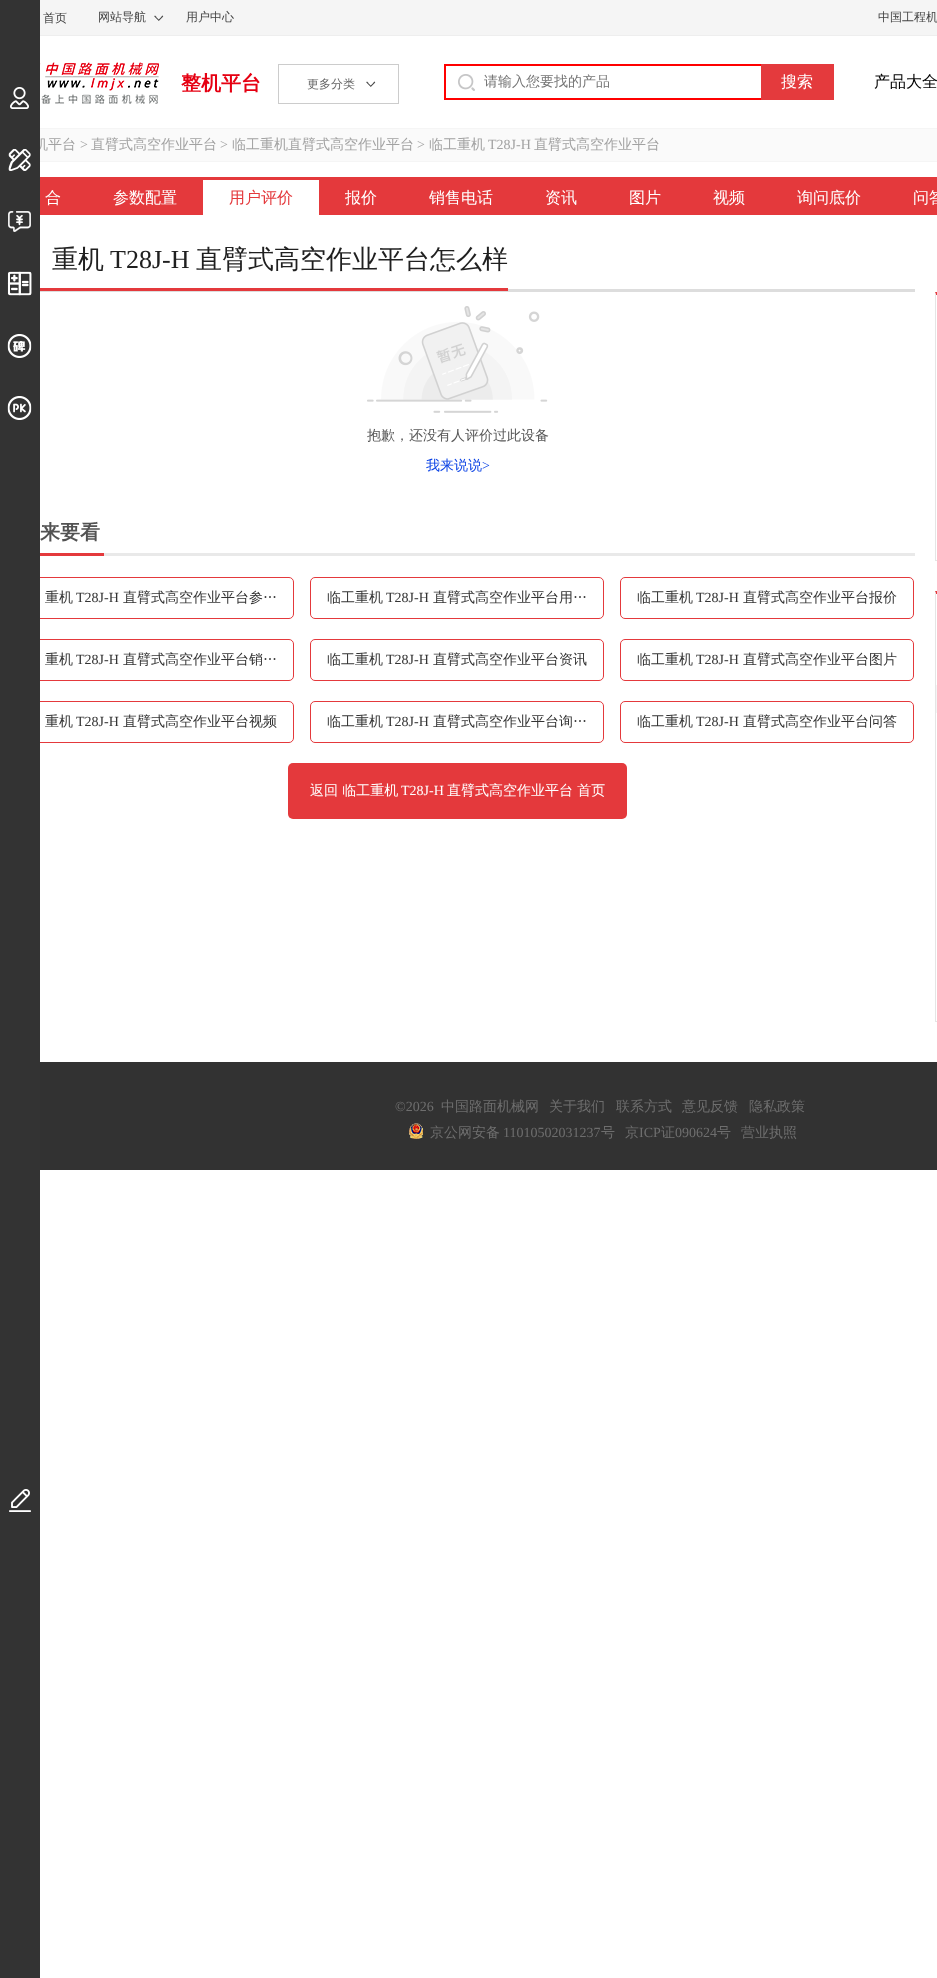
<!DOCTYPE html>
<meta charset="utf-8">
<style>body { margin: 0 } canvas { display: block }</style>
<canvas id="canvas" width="937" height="1978"></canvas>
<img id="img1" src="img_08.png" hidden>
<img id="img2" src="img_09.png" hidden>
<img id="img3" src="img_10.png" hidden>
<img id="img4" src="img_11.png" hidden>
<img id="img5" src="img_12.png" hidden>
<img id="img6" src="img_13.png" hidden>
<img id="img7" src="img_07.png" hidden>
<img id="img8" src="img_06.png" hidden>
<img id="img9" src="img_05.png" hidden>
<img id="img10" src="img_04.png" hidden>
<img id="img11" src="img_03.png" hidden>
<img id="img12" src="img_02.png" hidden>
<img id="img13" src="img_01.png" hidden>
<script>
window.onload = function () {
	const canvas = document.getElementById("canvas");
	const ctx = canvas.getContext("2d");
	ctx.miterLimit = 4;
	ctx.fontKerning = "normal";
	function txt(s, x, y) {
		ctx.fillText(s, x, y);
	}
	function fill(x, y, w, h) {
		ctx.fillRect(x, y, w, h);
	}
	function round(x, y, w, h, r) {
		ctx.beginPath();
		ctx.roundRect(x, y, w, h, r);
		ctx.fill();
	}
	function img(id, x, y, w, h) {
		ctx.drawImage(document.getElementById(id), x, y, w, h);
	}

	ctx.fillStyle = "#FFFFFF";
	fill(0, 0, 937, 1978);
	ctx.fillStyle = "#F5F5F5";
	fill(40, 0, 897, 35);
	ctx.fillStyle = "#EEEEEE";
	fill(40, 35, 897, 1);
	img("img1", 154, 15, 10, 6);
	img("img2", 40, 62, 119, 42);
	img("img3", 366, 81, 10, 6);
	ctx.strokeStyle = "#CCCCCC";
	ctx.strokeRect(278.5, 64.5, 120, 39);
	img("img4", 458, 74, 17, 17);
	ctx.strokeStyle = "#FF0000";
	ctx.lineWidth = 2;
	ctx.strokeRect(445, 65, 388, 34);
	ctx.fillStyle = "#E43A3D";
	fill(761, 64, 73, 36);
	ctx.fillStyle = "#FAFAFA";
	fill(40, 129, 897, 32);
	ctx.strokeStyle = "#F5F5F5";
	ctx.lineWidth = 1;
	ctx.strokeRect(0.5, 128.5, 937, 33);
	ctx.fillStyle = "#E4393C";
	fill(40, 177, 897, 38);
	ctx.fillStyle = "#FFFFFF";
	fill(203, 180, 116, 35);
	ctx.fillStyle = "#DDDDDD";
	fill(40, 289, 875, 3);
	ctx.fillStyle = "#E4393C";
	fill(40, 288, 468, 3);
	img("img5", 367, 306, 181, 107);
	ctx.fillStyle = "#E9E9E9";
	fill(104, 553, 811, 3);
	ctx.fillStyle = "#E4393C";
	fill(40, 553, 64, 3);
	ctx.beginPath();
	ctx.roundRect(0.5, 577.5, 293, 41, 4.5);
	ctx.strokeStyle = "#E4393C";
	ctx.stroke();
	ctx.beginPath();
	ctx.roundRect(310.5, 577.5, 293, 41, 4.5);
	ctx.stroke();
	ctx.beginPath();
	ctx.roundRect(620.5, 577.5, 293, 41, 4.5);
	ctx.stroke();
	ctx.beginPath();
	ctx.roundRect(0.5, 639.5, 293, 41, 4.5);
	ctx.stroke();
	ctx.beginPath();
	ctx.roundRect(310.5, 639.5, 293, 41, 4.5);
	ctx.stroke();
	ctx.beginPath();
	ctx.roundRect(620.5, 639.5, 293, 41, 4.5);
	ctx.stroke();
	ctx.beginPath();
	ctx.roundRect(0.5, 701.5, 293, 41, 4.5);
	ctx.stroke();
	ctx.beginPath();
	ctx.roundRect(310.5, 701.5, 293, 41, 4.5);
	ctx.stroke();
	ctx.beginPath();
	ctx.roundRect(620.5, 701.5, 293, 41, 4.5);
	ctx.stroke();
	round(288, 763, 339, 56, 5);
	ctx.beginPath();
	ctx.moveTo(935, 292);
	ctx.lineTo(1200, 292);
	ctx.lineTo(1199, 295);
	ctx.lineTo(936, 295);
	ctx.closePath();
	ctx.fill();
	ctx.fillStyle = "#E5E5E5";
	fill(935, 560, 2, 1);
	ctx.beginPath();
	ctx.moveTo(935, 561);
	ctx.lineTo(935, 292);
	ctx.lineTo(936, 295);
	ctx.lineTo(936, 560);
	ctx.closePath();
	ctx.fill();
	ctx.fillStyle = "#E4393C";
	ctx.beginPath();
	ctx.moveTo(935, 591);
	ctx.lineTo(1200, 591);
	ctx.lineTo(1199, 594);
	ctx.lineTo(936, 594);
	ctx.closePath();
	ctx.fill();
	ctx.fillStyle = "#E5E5E5";
	fill(935, 1021, 2, 1);
	ctx.beginPath();
	ctx.moveTo(935, 1022);
	ctx.lineTo(935, 591);
	ctx.lineTo(936, 594);
	ctx.lineTo(936, 1021);
	ctx.closePath();
	ctx.fill();
	ctx.fillStyle = "#F4F4F4";
	fill(936, 685, 1, 28);
	ctx.fillStyle = "#323232";
	fill(40, 1062, 897, 108);
	img("img6", 409, 1123, 14, 16);
	ctx.font = "500 12px WenQuanYi Zen Hei";
	ctx.fillStyle = "#444444";
	txt("首页", 43, 22);
	txt("网站导航", 98, 21);
	txt("用户中心", 186, 21);
	txt("中国工程机", 878, 21);
	ctx.font = "bold 20px WenQuanYi Zen Hei";
	ctx.fillStyle = "#E60012";
	txt("整机平台", 181, 90);
	ctx.font = "500 12px WenQuanYi Zen Hei";
	ctx.fillStyle = "#666666";
	txt("更多分类", 307, 88);
	ctx.font = "500 14px WenQuanYi Zen Hei";
	ctx.fillStyle = "#757575";
	txt("请输入您要找的产品", 484, 86);
	ctx.font = "500 16px WenQuanYi Zen Hei";
	ctx.fillStyle = "#FFFFFF";
	txt("搜索", 781, 87);
	ctx.fillStyle = "#000000";
	txt("产品大全", 874, 87);
	ctx.font = "500 14px WenQuanYi Zen Hei";
	ctx.fillStyle = "#A2A2A2";
	txt("机平台", 34, 149);
	ctx.fillStyle = "#333333";
	fill(0, 0, 40, 1978);
	img("img7", 9, 1489, 22, 23);
	img("img8", 7, 396, 25, 24);
	img("img9", 7, 334, 25, 24);
	img("img10", 7, 271, 25, 25);
	img("img11", 8, 211, 23, 21);
	img("img12", 8, 149, 23, 22);
	img("img13", 10, 87, 19, 22);
	ctx.font = "14px Liberation Serif";
	ctx.fillStyle = "#A2A2A2";
	txt(">", 80, 149);
	ctx.font = "500 14px WenQuanYi Zen Hei";
	txt("直臂式高空作业平台", 91, 149);
	ctx.font = "14px Liberation Serif";
	txt(">", 220, 149);
	ctx.font = "500 14px WenQuanYi Zen Hei";
	txt("临工重机直臂式高空作业平台", 232, 149);
	ctx.font = "14px Liberation Serif";
	txt(">", 417, 149);
	ctx.font = "500 14px WenQuanYi Zen Hei";
	txt("临工重机", 429, 149);
	ctx.font = "14px Liberation Serif";
	txt("T28J-H", 488, 149);
	ctx.font = "500 14px WenQuanYi Zen Hei";
	txt("直臂式高空作业平台", 534, 149);
	ctx.font = "500 16px WenQuanYi Zen Hei";
	ctx.fillStyle = "#FFFFFF";
	txt("合", 45, 203);
	txt("参数配置", 113, 203);
	ctx.fillStyle = "#E4393C";
	txt("用户评价", 229, 203);
	ctx.fillStyle = "#FFFFFF";
	txt("报价", 345, 203);
	txt("销售电话", 429, 203);
	txt("资讯", 545, 203);
	txt("图片", 629, 203);
	txt("视频", 713, 203);
	txt("询问底价", 797, 203);
	txt("问答", 913, 203);
	ctx.font = "500 26px WenQuanYi Zen Hei";
	ctx.fillStyle = "#202020";
	txt("重机", 52, 268);
	ctx.font = "26px Liberation Serif";
	txt("T28J-H", 110, 268);
	ctx.font = "500 26px WenQuanYi Zen Hei";
	txt("直臂式高空作业平台怎么样", 196, 268);
	ctx.font = "500 14px WenQuanYi Zen Hei";
	ctx.fillStyle = "#585858";
	txt("抱歉，还没有人评价过此设备", 367, 440);
	ctx.fillStyle = "#0A42E5";
	txt("我来说说", 426, 470);
	ctx.font = "14px Liberation Serif";
	txt(">", 482, 470);
	ctx.font = "bold 20px WenQuanYi Zen Hei";
	ctx.fillStyle = "#525252";
	txt("来要看", 40, 539);
	ctx.font = "500 14px WenQuanYi Zen Hei";
	ctx.fillStyle = "#333333";
	txt("重机", 45, 602);
	ctx.font = "14px Liberation Serif";
	txt("T28J-H", 76, 602);
	ctx.font = "500 14px WenQuanYi Zen Hei";
	txt("直臂式高空作业平台参…", 123, 602);
	txt("临工重机", 327, 602);
	ctx.font = "14px Liberation Serif";
	txt("T28J-H", 386, 602);
	ctx.font = "500 14px WenQuanYi Zen Hei";
	txt("直臂式高空作业平台用…", 433, 602);
	txt("临工重机", 637, 602);
	ctx.font = "14px Liberation Serif";
	txt("T28J-H", 696, 602);
	ctx.font = "500 14px WenQuanYi Zen Hei";
	txt("直臂式高空作业平台报价", 743, 602);
	txt("重机", 45, 664);
	ctx.font = "14px Liberation Serif";
	txt("T28J-H", 76, 664);
	ctx.font = "500 14px WenQuanYi Zen Hei";
	txt("直臂式高空作业平台销…", 123, 664);
	txt("临工重机", 327, 664);
	ctx.font = "14px Liberation Serif";
	txt("T28J-H", 386, 664);
	ctx.font = "500 14px WenQuanYi Zen Hei";
	txt("直臂式高空作业平台资讯", 433, 664);
	txt("临工重机", 637, 664);
	ctx.font = "14px Liberation Serif";
	txt("T28J-H", 696, 664);
	ctx.font = "500 14px WenQuanYi Zen Hei";
	txt("直臂式高空作业平台图片", 743, 664);
	txt("重机", 45, 726);
	ctx.font = "14px Liberation Serif";
	txt("T28J-H", 76, 726);
	ctx.font = "500 14px WenQuanYi Zen Hei";
	txt("直臂式高空作业平台视频", 123, 726);
	txt("临工重机", 327, 726);
	ctx.font = "14px Liberation Serif";
	txt("T28J-H", 386, 726);
	ctx.font = "500 14px WenQuanYi Zen Hei";
	txt("直臂式高空作业平台询…", 433, 726);
	txt("临工重机", 637, 726);
	ctx.font = "14px Liberation Serif";
	txt("T28J-H", 696, 726);
	ctx.font = "500 14px WenQuanYi Zen Hei";
	txt("直臂式高空作业平台问答", 743, 726);
	ctx.fillStyle = "#FFFFFF";
	txt("返回 临工重机", 310, 795);
	ctx.font = "14px Liberation Serif";
	txt("T28J-H", 401, 795);
	ctx.font = "500 14px WenQuanYi Zen Hei";
	txt("直臂式高空作业平台 首页", 447, 795);
	ctx.font = "14px Liberation Serif";
	ctx.fillStyle = "#6E6E6E";
	txt("©2026", 395, 1111);
	ctx.font = "500 14px WenQuanYi Zen Hei";
	txt("中国路面机械网", 441, 1111);
	txt("关于我们", 549, 1111);
	txt("联系方式", 616, 1111);
	txt("意见反馈", 682, 1111);
	txt("隐私政策", 749, 1111);
	txt("京公网安备", 430, 1137);
	ctx.font = "14px Liberation Serif";
	txt("11010502031237", 503, 1137);
	ctx.font = "500 14px WenQuanYi Zen Hei";
	txt("号", 601, 1137);
	txt("京", 625, 1137);
	ctx.font = "14px Liberation Serif";
	txt("ICP", 639, 1137);
	ctx.font = "500 14px WenQuanYi Zen Hei";
	txt("证", 661, 1137);
	ctx.font = "14px Liberation Serif";
	txt("090624", 675, 1137);
	ctx.font = "500 14px WenQuanYi Zen Hei";
	txt("号", 717, 1137);
	txt("营业执照", 741, 1137);
};
</script>
